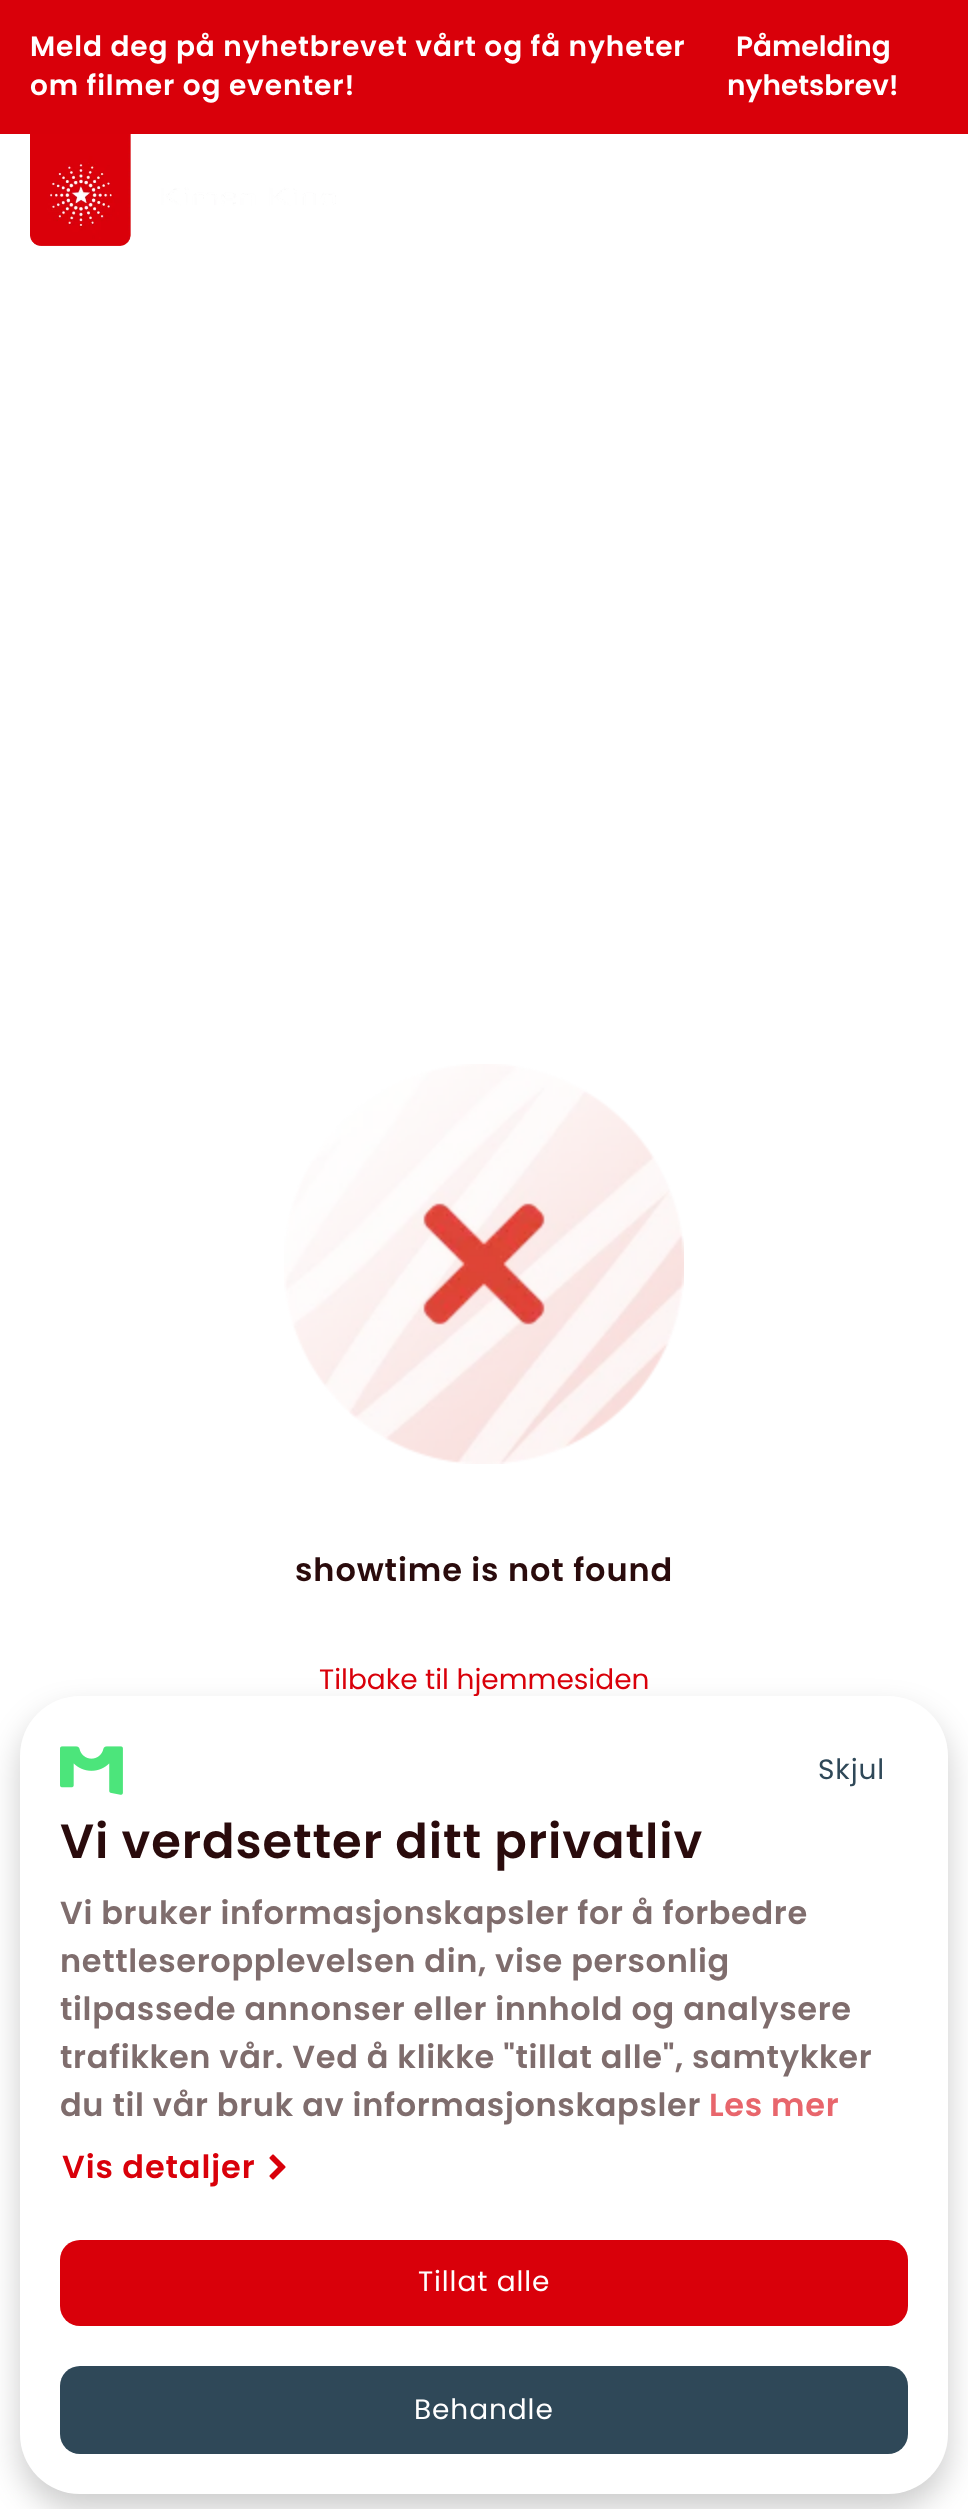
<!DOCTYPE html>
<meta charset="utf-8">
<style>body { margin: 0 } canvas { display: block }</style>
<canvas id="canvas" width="968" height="2509"></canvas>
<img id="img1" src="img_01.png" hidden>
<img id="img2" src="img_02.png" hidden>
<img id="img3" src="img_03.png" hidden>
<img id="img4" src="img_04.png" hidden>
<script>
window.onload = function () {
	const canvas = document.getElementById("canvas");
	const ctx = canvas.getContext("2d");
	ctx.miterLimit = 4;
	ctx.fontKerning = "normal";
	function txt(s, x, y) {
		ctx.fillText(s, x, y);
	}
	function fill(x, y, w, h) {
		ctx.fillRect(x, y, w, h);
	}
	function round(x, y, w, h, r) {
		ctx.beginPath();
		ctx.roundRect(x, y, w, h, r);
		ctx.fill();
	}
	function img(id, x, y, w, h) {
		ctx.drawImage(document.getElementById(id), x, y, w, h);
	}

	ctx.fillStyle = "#FFFFFF";
	fill(0, 0, 968, 2509);
	ctx.fillStyle = "#D9000A";
	fill(0, 0, 968, 134);
	img("img1", 30, 134, 306, 112);
	img("img2", 284, 1064, 400, 400);
	ctx.fillStyle = "rgba(0, 0, 0, 0.2)";
	ctx.filter = "blur(16px)";
	ctx.beginPath();
	ctx.roundRect(20, 1712, 928, 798, 60);
	ctx.fill();
	ctx.filter = "none";
	ctx.letterSpacing = "0.9px";
	ctx.font = "600 28px Poppins";
	ctx.fillStyle = "#FFFFFF";
	txt("Meld deg på nyhetbrevet vårt og få nyheter", 30, 56);
	txt("om filmer og eventer!", 30, 95);
	ctx.letterSpacing = "0px";
	txt("Påmelding", 736, 56);
	txt("nyhetsbrev!", 727, 95);
	ctx.letterSpacing = "0.9px";
	ctx.font = "600 32px Poppins";
	ctx.fillStyle = "#2A0B0C";
	txt("showtime is not found", 295, 1581);
	ctx.letterSpacing = "0px";
	ctx.font = "28px Poppins";
	ctx.fillStyle = "#D9000A";
	txt("Tilbake til hjemmesiden", 319, 1689);
	ctx.fillStyle = "#FFFFFF";
	round(20, 1696, 928, 798, 60);
	img("img3", 60, 1746, 63, 49);
	ctx.letterSpacing = "0.9px";
	ctx.fillStyle = "#2F4858";
	txt("Skjul", 818, 1779);
	ctx.font = "600 48px Poppins";
	ctx.fillStyle = "#2A0B0C";
	txt("Vi verdsetter ditt privatliv", 60, 1858);
	ctx.letterSpacing = "0.65px";
	ctx.font = "600 32px Poppins";
	ctx.fillStyle = "#7F6D6D";
	txt("Vi bruker informasjonskapsler for å forbedre", 60, 1924);
	txt("nettleseropplevelsen din, vise personlig", 60, 1972);
	txt("tilpassede annonser eller innhold og analysere", 60, 2020);
	txt("trafikken vår. Ved å klikke \"tillat alle\", samtykker", 60, 2068);
	txt("du til vår bruk av informasjonskapsler", 60, 2116);
	ctx.fillStyle = "#E8666C";
	txt("Les mer", 709, 2116);
	ctx.letterSpacing = "0.9px";
	ctx.fillStyle = "#D9000A";
	txt("Vis detaljer", 62, 2178);
	img("img4", 269, 2154, 17, 26);
	round(60, 2240, 848, 86, 20);
	ctx.font = "28px Poppins";
	ctx.fillStyle = "#FFFFFF";
	txt("Tillat alle", 418, 2291);
	ctx.fillStyle = "#2F4858";
	round(60, 2366, 848, 88, 20);
	ctx.fillStyle = "#FFFFFF";
	txt("Behandle", 414, 2419);
};
</script>
